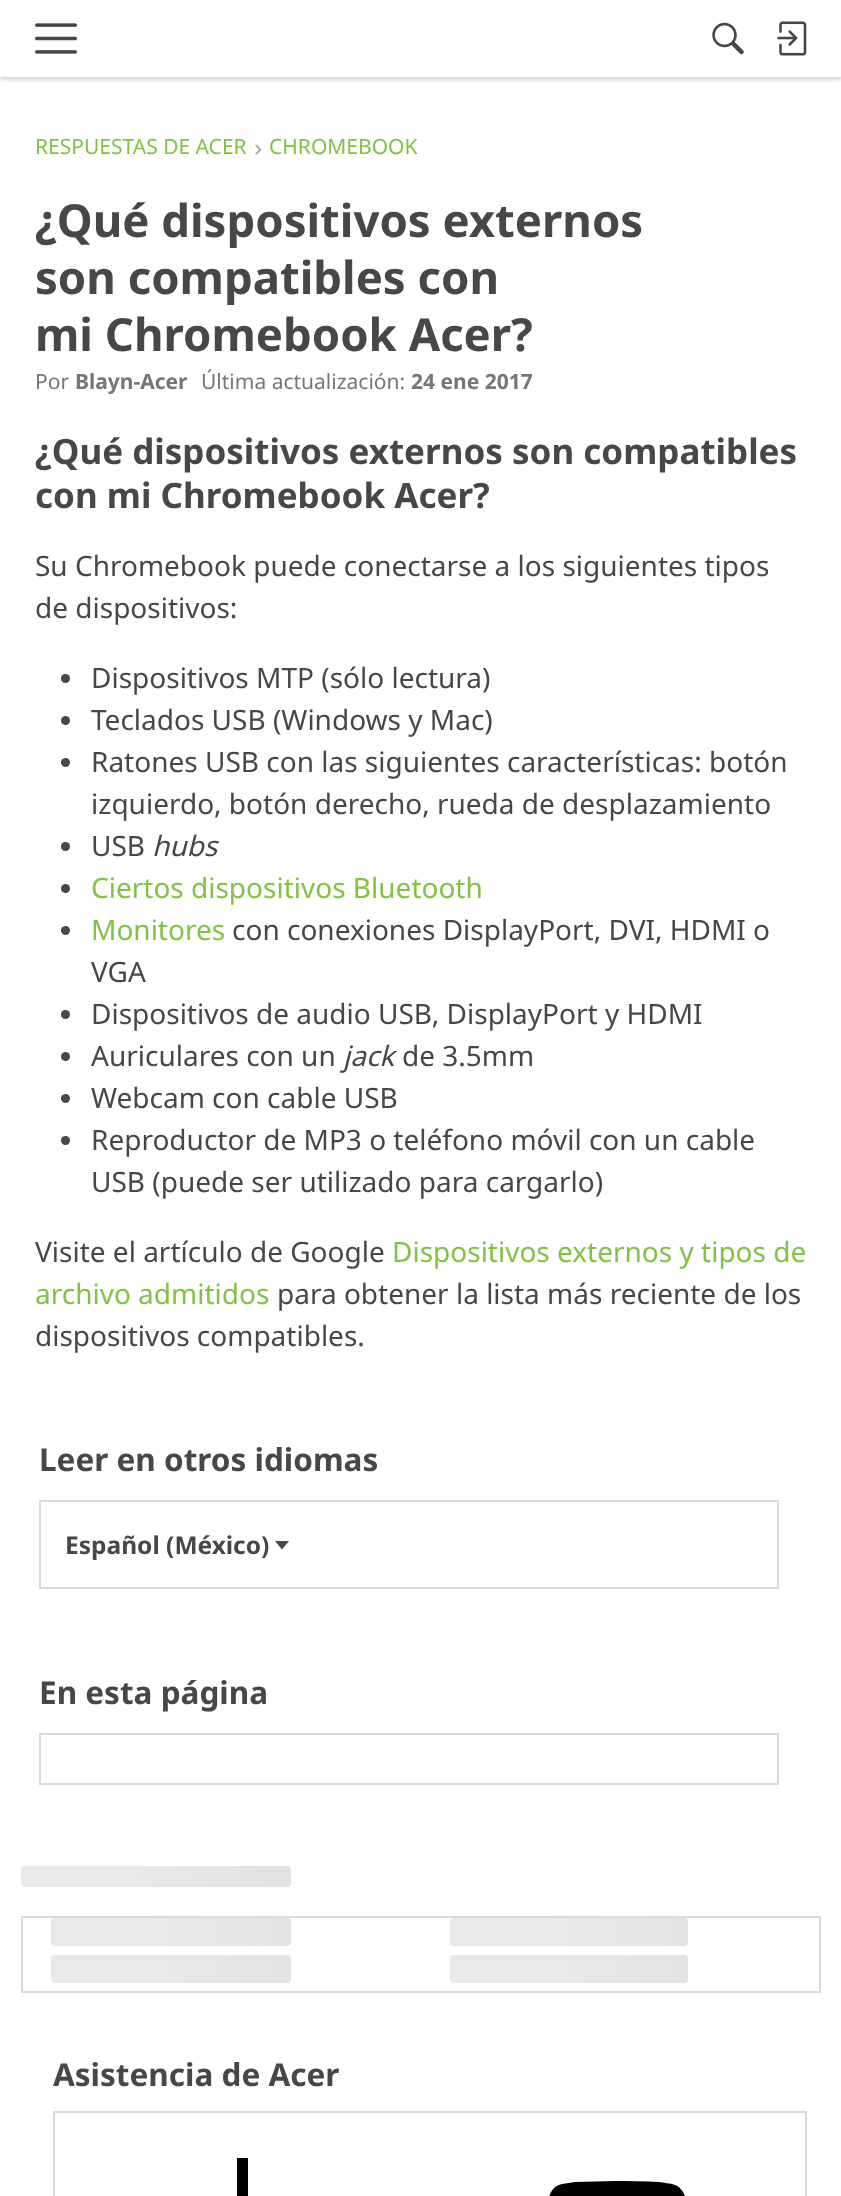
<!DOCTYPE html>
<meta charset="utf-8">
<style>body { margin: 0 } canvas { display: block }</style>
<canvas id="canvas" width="841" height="2196"></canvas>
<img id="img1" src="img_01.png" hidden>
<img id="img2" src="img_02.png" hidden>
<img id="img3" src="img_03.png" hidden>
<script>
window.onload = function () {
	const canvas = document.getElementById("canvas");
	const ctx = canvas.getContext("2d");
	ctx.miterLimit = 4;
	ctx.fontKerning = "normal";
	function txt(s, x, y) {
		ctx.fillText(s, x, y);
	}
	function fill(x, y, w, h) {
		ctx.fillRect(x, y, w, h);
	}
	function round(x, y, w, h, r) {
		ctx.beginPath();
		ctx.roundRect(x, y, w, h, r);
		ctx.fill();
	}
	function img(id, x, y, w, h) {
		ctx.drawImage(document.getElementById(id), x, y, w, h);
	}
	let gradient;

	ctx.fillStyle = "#FFFFFF";
	fill(0, 0, 841, 2196);
	ctx.save();
	ctx.beginPath();
	ctx.rect(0, 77, 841, 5);
	ctx.clip();
	ctx.fillStyle = "rgba(0, 0, 0, 0.22)";
	ctx.filter = "blur(2.5px)";
	ctx.beginPath();
	ctx.rect(0, 2, 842, 77);
	ctx.fill();
	ctx.filter = "none";
	ctx.restore();
	img("img1", 35, 23, 42, 31);
	img("img2", 712, 22, 32, 33);
	img("img3", 777, 21, 30, 35);
	ctx.fillStyle = "#474747";
	ctx.beginPath();
	ctx.arc(65.5, 678.5, 4.5, 0, Math.PI * 2);
	ctx.fill();
	ctx.beginPath();
	ctx.arc(65.5, 720.5, 4.5, 0, Math.PI * 2);
	ctx.fill();
	ctx.beginPath();
	ctx.arc(65.5, 762.5, 4.5, 0, Math.PI * 2);
	ctx.fill();
	ctx.beginPath();
	ctx.arc(65.5, 846.5, 4.5, 0, Math.PI * 2);
	ctx.fill();
	ctx.beginPath();
	ctx.arc(65.5, 888.5, 4.5, 0, Math.PI * 2);
	ctx.fill();
	ctx.beginPath();
	ctx.arc(65.5, 930.5, 4.5, 0, Math.PI * 2);
	ctx.fill();
	ctx.beginPath();
	ctx.arc(65.5, 1014.5, 4.5, 0, Math.PI * 2);
	ctx.fill();
	ctx.beginPath();
	ctx.arc(65.5, 1056.5, 4.5, 0, Math.PI * 2);
	ctx.fill();
	ctx.beginPath();
	ctx.arc(65.5, 1098.5, 4.5, 0, Math.PI * 2);
	ctx.fill();
	ctx.beginPath();
	ctx.arc(65.5, 1140.5, 4.5, 0, Math.PI * 2);
	ctx.fill();
	ctx.strokeStyle = "#DADADA";
	ctx.lineWidth = 2;
	ctx.strokeRect(40, 1501, 738, 87);
	ctx.beginPath();
	ctx.moveTo(275, 1541);
	ctx.lineTo(289, 1541);
	ctx.lineTo(282, 1549.5);
	ctx.closePath();
	ctx.fill();
	ctx.strokeRect(40, 1734, 738, 50);
	gradient = ctx.createLinearGradient(21, 1876, 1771, 1876);
	gradient.addColorStop(0.06, "#E9E9E9");
	gradient.addColorStop(0.25, "#DADADA");
	gradient.addColorStop(0.34, "#E9E9E9");
	ctx.fillStyle = gradient;
	round(21, 1866, 270, 21, 4);
	ctx.strokeRect(22, 1917, 798, 75);
	gradient = ctx.createLinearGradient(51, 1932, 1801, 1932);
	gradient.addColorStop(0.06, "#E9E9E9");
	gradient.addColorStop(0.25, "#DADADA");
	gradient.addColorStop(0.34, "#E9E9E9");
	ctx.fillStyle = gradient;
	round(51, 1918, 240, 28, 4);
	gradient = ctx.createLinearGradient(450, 1932, 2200, 1932);
	gradient.addColorStop(0.06, "#E9E9E9");
	gradient.addColorStop(0.25, "#DADADA");
	gradient.addColorStop(0.34, "#E9E9E9");
	ctx.fillStyle = gradient;
	round(450, 1918, 238, 28, 4);
	gradient = ctx.createLinearGradient(51, 1969, 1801, 1969);
	gradient.addColorStop(0.06, "#E9E9E9");
	gradient.addColorStop(0.25, "#DADADA");
	gradient.addColorStop(0.34, "#E9E9E9");
	ctx.fillStyle = gradient;
	round(51, 1955, 240, 28, 4);
	gradient = ctx.createLinearGradient(450, 1969, 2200, 1969);
	gradient.addColorStop(0.06, "#E9E9E9");
	gradient.addColorStop(0.25, "#DADADA");
	gradient.addColorStop(0.34, "#E9E9E9");
	ctx.fillStyle = gradient;
	round(450, 1955, 238, 28, 4);
	ctx.strokeRect(54, 2112, 752, 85);
	ctx.fillStyle = "#000000";
	ctx.beginPath();
	ctx.moveTo(197, 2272);
	ctx.bezierCurveTo(185, 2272, 186, 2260, 186, 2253);
	ctx.lineTo(186, 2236);
	ctx.lineTo(197, 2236);
	ctx.lineTo(197, 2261);
	ctx.lineTo(289, 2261);
	ctx.lineTo(289, 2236);
	ctx.lineTo(299, 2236);
	ctx.lineTo(299, 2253);
	ctx.bezierCurveTo(299, 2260, 300, 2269, 291, 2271);
	ctx.closePath();
	ctx.moveTo(243, 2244);
	ctx.lineTo(209, 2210);
	ctx.lineTo(216, 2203);
	ctx.lineTo(237, 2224);
	ctx.lineTo(237, 2158);
	ctx.lineTo(248, 2158);
	ctx.lineTo(248, 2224);
	ctx.lineTo(269, 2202);
	ctx.lineTo(277, 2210);
	ctx.closePath();
	ctx.fill();
	ctx.beginPath();
	ctx.moveTo(685, 2196);
	ctx.bezierCurveTo(683, 2191, 680, 2187, 675, 2185);
	ctx.bezierCurveTo(670, 2183, 664, 2183, 659, 2182);
	ctx.bezierCurveTo(645, 2181, 630, 2181, 615, 2181);
	ctx.lineTo(575, 2182);
	ctx.lineTo(562, 2184);
	ctx.bezierCurveTo(547, 2187, 547, 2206, 547, 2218);
	ctx.bezierCurveTo(546, 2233, 545, 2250, 549, 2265);
	ctx.bezierCurveTo(550, 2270, 555, 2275, 559, 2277);
	ctx.bezierCurveTo(567, 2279, 576, 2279, 584, 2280);
	ctx.lineTo(624, 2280);
	ctx.lineTo(659, 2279);
	ctx.lineTo(673, 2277);
	ctx.bezierCurveTo(687, 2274, 687, 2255, 688, 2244);
	ctx.bezierCurveTo(688, 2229, 689, 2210, 685, 2196);
	ctx.closePath();
	ctx.moveTo(603, 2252);
	ctx.lineTo(603, 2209);
	ctx.lineTo(640, 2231);
	ctx.closePath();
	ctx.fill();
	ctx.font = "21px Noto Sans";
	ctx.fillStyle = "#80C343";
	txt("RESPUESTAS DE ACER", 35, 154);
	ctx.font = "24.5px Liberation Sans";
	ctx.fillStyle = "#A3A3A3";
	txt("›", 254, 156);
	ctx.font = "21px Noto Sans";
	ctx.fillStyle = "#80C343";
	txt("CHROMEBOOK", 269, 154);
	ctx.font = "bold 45.5px Noto Sans";
	ctx.fillStyle = "#474747";
	txt("¿Qué dispositivos externos", 35, 237);
	txt("son compatibles con", 35, 294);
	txt("mi Chromebook Acer?", 35, 351);
	ctx.font = "21px Noto Sans";
	ctx.fillStyle = "#767676";
	txt("Por", 35, 389);
	ctx.font = "bold 21px Noto Sans";
	txt("Blayn-Acer", 75, 389);
	ctx.font = "21px Noto Sans";
	txt("Última actualización:", 201, 389);
	ctx.font = "bold 21px Noto Sans";
	txt("24 ene 2017", 411, 389);
	ctx.font = "bold 35px Noto Sans";
	ctx.fillStyle = "#474747";
	txt("¿Qué dispositivos externos son compatibles", 35, 464);
	txt("con mi Chromebook Acer?", 35, 508);
	ctx.font = "28px Noto Sans";
	txt("Su Chromebook puede conectarse a los siguientes tipos", 35, 576);
	txt("de dispositivos:", 35, 618);
	txt("Dispositivos MTP (sólo lectura)", 91, 688);
	txt("Teclados USB (Windows y Mac)", 91, 730);
	txt("Ratones USB con las siguientes características: botón", 91, 772);
	txt("izquierdo, botón derecho, rueda de desplazamiento", 91, 814);
	txt("USB", 91, 856);
	ctx.font = "italic 28px Noto Sans";
	txt("hubs", 152, 856);
	ctx.font = "28px Noto Sans";
	ctx.fillStyle = "#80C343";
	txt("Ciertos dispositivos Bluetooth", 91, 898);
	txt("Monitores", 91, 940);
	ctx.fillStyle = "#474747";
	txt("con conexiones DisplayPort, DVI, HDMI o", 232, 940);
	txt("VGA", 91, 982);
	txt("Dispositivos de audio USB, DisplayPort y HDMI", 91, 1024);
	txt("Auriculares con un", 91, 1066);
	ctx.font = "italic 28px Noto Sans";
	txt("jack", 343, 1066);
	ctx.font = "28px Noto Sans";
	txt("de 3.5mm", 402, 1066);
	txt("Webcam con cable USB", 91, 1108);
	txt("Reproductor de MP3 o teléfono móvil con un cable", 91, 1150);
	txt("USB (puede ser utilizado para cargarlo)", 91, 1192);
	txt("Visite el artículo de Google", 35, 1262);
	ctx.fillStyle = "#80C343";
	txt("Dispositivos externos y tipos de", 392, 1262);
	txt("archivo admitidos", 35, 1304);
	ctx.fillStyle = "#474747";
	txt("para obtener la lista más reciente de los", 277, 1304);
	txt("dispositivos compatibles.", 35, 1346);
	ctx.font = "bold 31.5px Noto Sans";
	txt("Leer en otros idiomas", 39, 1471);
	ctx.font = "bold 24.5px Noto Sans";
	txt("Español (México)", 65, 1554);
	ctx.font = "bold 31.5px Noto Sans";
	txt("En esta página", 39, 1704);
	txt("Asistencia de Acer", 53, 2086);
};
</script>
